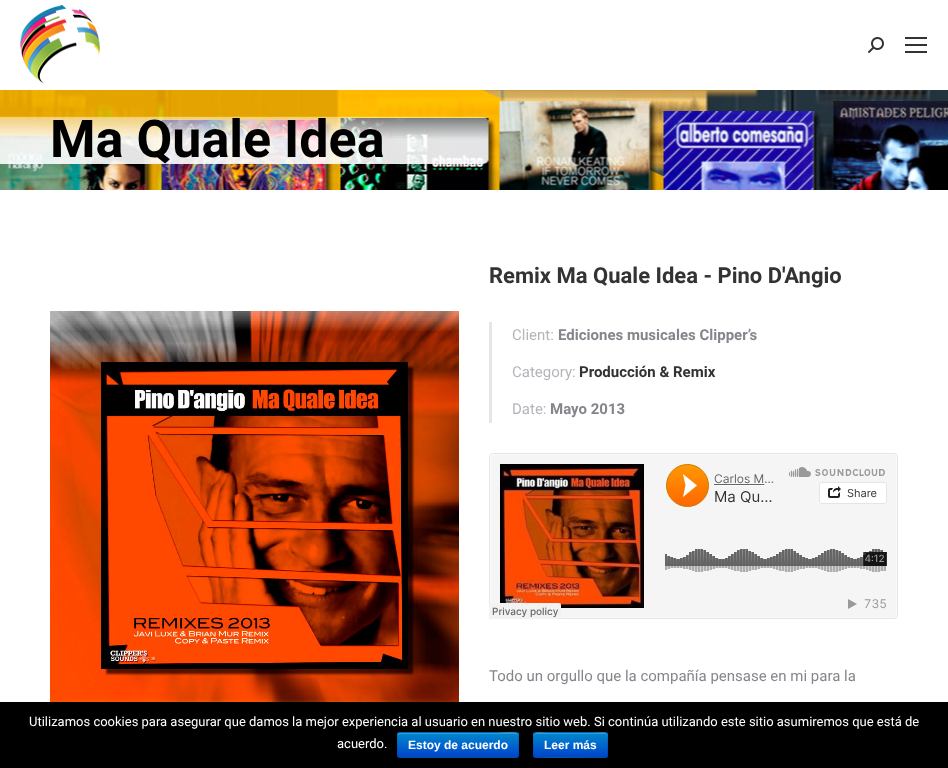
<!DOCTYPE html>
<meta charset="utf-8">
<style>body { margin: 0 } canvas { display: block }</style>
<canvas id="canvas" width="948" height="768"></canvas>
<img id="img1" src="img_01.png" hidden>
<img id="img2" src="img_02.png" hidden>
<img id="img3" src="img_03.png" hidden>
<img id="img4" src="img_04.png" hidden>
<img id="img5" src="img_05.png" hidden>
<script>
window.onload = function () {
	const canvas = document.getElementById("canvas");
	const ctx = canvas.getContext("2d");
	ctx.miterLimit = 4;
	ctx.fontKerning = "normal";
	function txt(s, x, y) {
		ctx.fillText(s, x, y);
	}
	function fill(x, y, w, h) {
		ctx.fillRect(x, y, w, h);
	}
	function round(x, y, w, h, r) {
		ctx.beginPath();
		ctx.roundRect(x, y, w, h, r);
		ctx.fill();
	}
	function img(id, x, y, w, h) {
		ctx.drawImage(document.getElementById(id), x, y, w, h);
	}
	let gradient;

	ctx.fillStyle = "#FFFFFF";
	fill(0, 0, 948, 768);
	img("img1", 20, 5, 80, 79);
	img("img2", 868, 37, 16, 16);
	ctx.fillStyle = "#333333";
	fill(905, 37, 22, 2);
	fill(905, 44, 22, 2);
	fill(905, 51, 22, 2);
	img("img3", 0, 90, 948, 100);
	img("img4", 50, 311, 409, 391);
	ctx.fillStyle = "#E6E6E6";
	fill(489, 322, 3, 101);
	img("img5", 489, 453, 409, 166);
	ctx.fillStyle = "#000000";
	fill(0, 702, 948, 66);
	ctx.fillStyle = "#006DCC";
	round(397, 732, 122, 26, 3);
	ctx.save();
	ctx.beginPath();
	ctx.roundRect(397, 732, 122, 26, 3);
	ctx.clip();
	gradient = ctx.createLinearGradient(458, 733, 458, 757);
	gradient.addColorStop(0, "#0088CC");
	gradient.addColorStop(1, "#0044CC");
	ctx.fillStyle = gradient;
	fill(397, 733, 122, 24);
	ctx.restore();
	ctx.fillStyle = "rgba(255, 255, 255, 0.2)";
	ctx.beginPath();
	ctx.moveTo(400, 734);
	ctx.lineTo(516, 734);
	ctx.bezierCurveTo(517, 734, 518, 735, 518, 736);
	ctx.bezierCurveTo(518, 729, 503, 733, 497, 733);
	ctx.lineTo(399, 733);
	ctx.bezierCurveTo(398, 734, 398, 735, 398, 736);
	ctx.bezierCurveTo(398, 735, 399, 734, 400, 734);
	ctx.closePath();
	ctx.fill();
	ctx.beginPath();
	ctx.moveTo(518, 757);
	ctx.lineTo(516, 757.5);
	ctx.lineTo(400, 757.5);
	ctx.lineTo(398, 757);
	ctx.strokeStyle = "rgba(0, 0, 0, 0.25)";
	ctx.stroke();
	ctx.beginPath();
	ctx.moveTo(398, 757);
	ctx.bezierCurveTo(396.5, 755, 397.5, 747.5, 397.5, 745);
	ctx.lineTo(397.5, 738.5);
	ctx.bezierCurveTo(397.5, 736.5, 397, 732.5, 400, 732.5);
	ctx.lineTo(516, 732.5);
	ctx.bezierCurveTo(519, 732.5, 518.5, 736.5, 518.5, 738.5);
	ctx.lineTo(518.5, 745);
	ctx.bezierCurveTo(518.5, 747.5, 519.5, 755, 518, 757);
	ctx.strokeStyle = "rgba(0, 0, 0, 0.1)";
	ctx.stroke();
	ctx.fillStyle = "#006DCC";
	round(533, 732, 75, 26, 3);
	ctx.save();
	ctx.beginPath();
	ctx.roundRect(533, 732, 75, 26, 3);
	ctx.clip();
	gradient = ctx.createLinearGradient(571, 733, 571, 757);
	gradient.addColorStop(0, "#0088CC");
	gradient.addColorStop(1, "#0044CC");
	ctx.fillStyle = gradient;
	fill(533, 733, 75, 24);
	ctx.restore();
	ctx.fillStyle = "rgba(255, 255, 255, 0.2)";
	ctx.beginPath();
	ctx.moveTo(536, 734);
	ctx.lineTo(606, 734);
	ctx.lineTo(607, 737);
	ctx.bezierCurveTo(607, 730, 602, 733, 594, 733);
	ctx.lineTo(548, 733);
	ctx.bezierCurveTo(542, 733, 534, 730, 534, 737);
	ctx.bezierCurveTo(534, 735, 535, 734, 536, 734);
	ctx.closePath();
	ctx.moveTo(607, 753);
	ctx.lineTo(607, 756);
	ctx.closePath();
	ctx.fill("evenodd");
	ctx.beginPath();
	ctx.moveTo(607, 757);
	ctx.lineTo(605, 757.5);
	ctx.lineTo(593.5, 757.5);
	ctx.bezierCurveTo(587, 757.5, 536.5, 758.5, 534.5, 757);
	ctx.lineTo(534, 757);
	ctx.strokeStyle = "rgba(0, 0, 0, 0.25)";
	ctx.stroke();
	ctx.beginPath();
	ctx.moveTo(534, 757);
	ctx.bezierCurveTo(532.5, 755, 533.5, 747.5, 533.5, 745);
	ctx.bezierCurveTo(533.5, 730, 531, 732.5, 547.5, 732.5);
	ctx.lineTo(593.5, 732.5);
	ctx.bezierCurveTo(611, 732.5, 607.5, 730, 607.5, 748.5);
	ctx.bezierCurveTo(607.5, 750.5, 608.5, 755, 607, 757);
	ctx.strokeStyle = "rgba(0, 0, 0, 0.1)";
	ctx.stroke();
	ctx.font = "bold 52px Roboto";
	ctx.fillStyle = "#000000";
	txt("Ma Quale Idea", 50, 157);
	ctx.font = "bold 22px Roboto";
	ctx.fillStyle = "#333333";
	txt("Remix Ma Quale Idea - Pino D'Angio", 489, 283);
	ctx.font = "15px Roboto";
	ctx.fillStyle = "#B4B5BB";
	txt("Client:", 512, 340);
	ctx.font = "bold 15px Roboto";
	ctx.fillStyle = "#85868C";
	txt("Ediciones musicales Clipper’s", 558, 340);
	ctx.font = "15px Roboto";
	ctx.fillStyle = "#B4B5BB";
	txt("Category:", 512, 377);
	ctx.font = "bold 15px Roboto";
	ctx.fillStyle = "#333333";
	txt("Producción & Remix", 579, 377);
	ctx.font = "15px Roboto";
	ctx.fillStyle = "#B4B5BB";
	txt("Date:", 512, 414);
	ctx.font = "bold 15px Roboto";
	ctx.fillStyle = "#85868C";
	txt("Mayo 2013", 550, 414);
	ctx.font = "15px Roboto";
	txt("Todo un orgullo que la compañía pensase en mi para la", 489, 681);
	ctx.font = "13px Roboto";
	ctx.fillStyle = "#FFFFFF";
	txt("Utilizamos cookies para asegurar que damos la mejor experiencia al usuario en nuestro sitio web. Si continúa utilizando este sitio asumiremos que está de", 29, 726);
	txt("acuerdo.", 337, 748);
	ctx.font = "bold 12px Liberation Sans";
	txt("Estoy de acuerdo", 408, 749);
	txt("Leer más", 544, 749);
};
</script>
